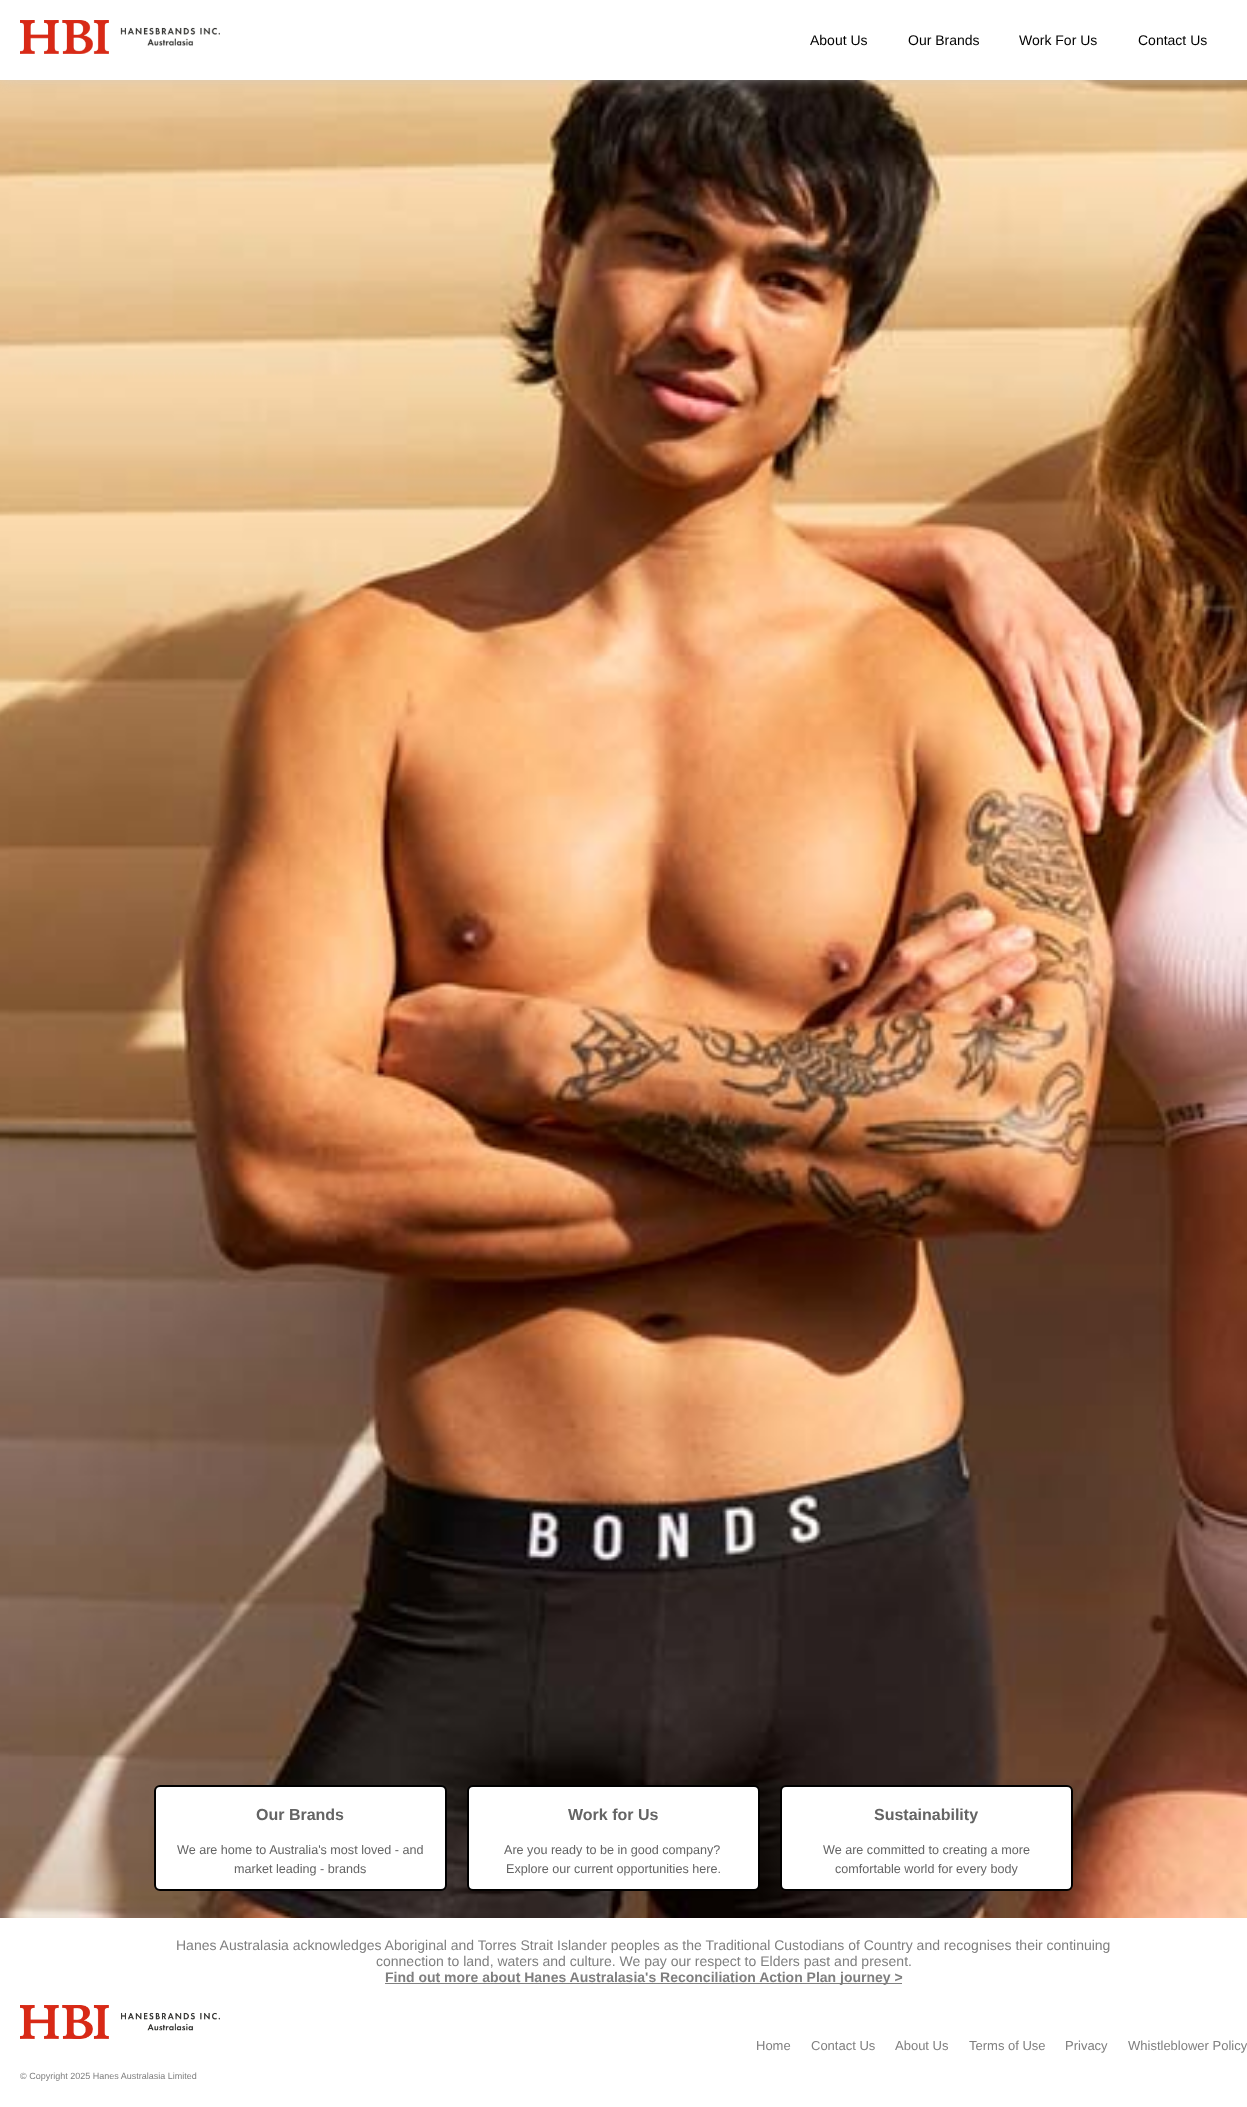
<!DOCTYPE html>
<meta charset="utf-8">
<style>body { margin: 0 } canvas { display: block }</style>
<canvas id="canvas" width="1247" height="2107"></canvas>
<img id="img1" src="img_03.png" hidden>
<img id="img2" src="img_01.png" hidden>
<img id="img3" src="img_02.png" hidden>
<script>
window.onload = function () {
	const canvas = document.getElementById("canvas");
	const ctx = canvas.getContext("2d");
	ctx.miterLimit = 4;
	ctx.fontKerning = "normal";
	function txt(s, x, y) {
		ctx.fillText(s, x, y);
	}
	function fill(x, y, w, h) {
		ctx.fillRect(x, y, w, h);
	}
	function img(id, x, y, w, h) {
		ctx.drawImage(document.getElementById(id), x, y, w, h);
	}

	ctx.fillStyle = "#FFFFFF";
	fill(0, 0, 1247, 2107);
	img("img1", 0, 80, 1247, 1838);
	ctx.fillStyle = "#CCCCCC";
	ctx.filter = "blur(7.5px)";
	ctx.beginPath();
	ctx.rect(0, -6, 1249, 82);
	ctx.fill();
	ctx.filter = "none";
	ctx.fillStyle = "#FFFFFF";
	fill(0, 0, 1247, 80);
	img("img2", 20, 20, 200, 34);
	ctx.beginPath();
	ctx.roundRect(155, 1786, 291, 104, 5);
	ctx.fill();
	ctx.strokeStyle = "#000000";
	ctx.lineWidth = 2;
	ctx.stroke();
	ctx.beginPath();
	ctx.roundRect(468, 1786, 291, 104, 5);
	ctx.fill();
	ctx.stroke();
	ctx.beginPath();
	ctx.roundRect(781, 1786, 291, 104, 5);
	ctx.fill();
	ctx.stroke();
	ctx.fillStyle = "#7F7F7F";
	fill(385, 1983, 517, 1);
	img("img3", 20, 2005, 200, 34);
	ctx.font = "14px Liberation Sans";
	ctx.fillStyle = "#000000";
	txt("About Us", 810, 45);
	txt("Our Brands", 908, 45);
	txt("Work For Us", 1019, 45);
	txt("Contact Us", 1138, 45);
	ctx.font = "bold 16px Liberation Sans";
	ctx.fillStyle = "#646464";
	txt("Our Brands", 256, 1820);
	ctx.font = "12.6px Liberation Sans";
	txt("We are home to Australia's most loved - and", 177, 1854);
	txt("market leading - brands", 234, 1873);
	ctx.font = "bold 16px Liberation Sans";
	txt("Work for Us", 568, 1820);
	ctx.font = "12.6px Liberation Sans";
	txt("Are you ready to be in good company?", 504, 1854);
	txt("Explore our current opportunities here.", 506, 1873);
	ctx.font = "bold 16px Liberation Sans";
	txt("Sustainability", 874, 1820);
	ctx.font = "12.6px Liberation Sans";
	txt("We are committed to creating a more", 823, 1854);
	txt("comfortable world for every body", 835, 1873);
	ctx.font = "14px Liberation Sans";
	ctx.fillStyle = "#7F7F7F";
	txt("Hanes Australasia acknowledges Aboriginal and Torres Strait Islander peoples as the Traditional Custodians of Country and recognises their continuing", 176, 1950);
	txt("connection to land, waters and culture. We pay our respect to Elders past and present.", 376, 1966);
	ctx.font = "bold 14px Liberation Sans";
	txt("Find out more about Hanes Australasia's Reconciliation Action Plan journey >", 385, 1982);
	ctx.font = "13px Liberation Sans";
	txt("Home", 756, 2050);
	txt("Contact Us", 811, 2050);
	txt("About Us", 895, 2050);
	txt("Terms of Use", 969, 2050);
	txt("Privacy", 1065, 2050);
	txt("Whistleblower Policy", 1128, 2050);
	ctx.font = "9px Liberation Sans";
	txt("© Copyright 2025 Hanes Australasia Limited", 20, 2079);
};
</script>
